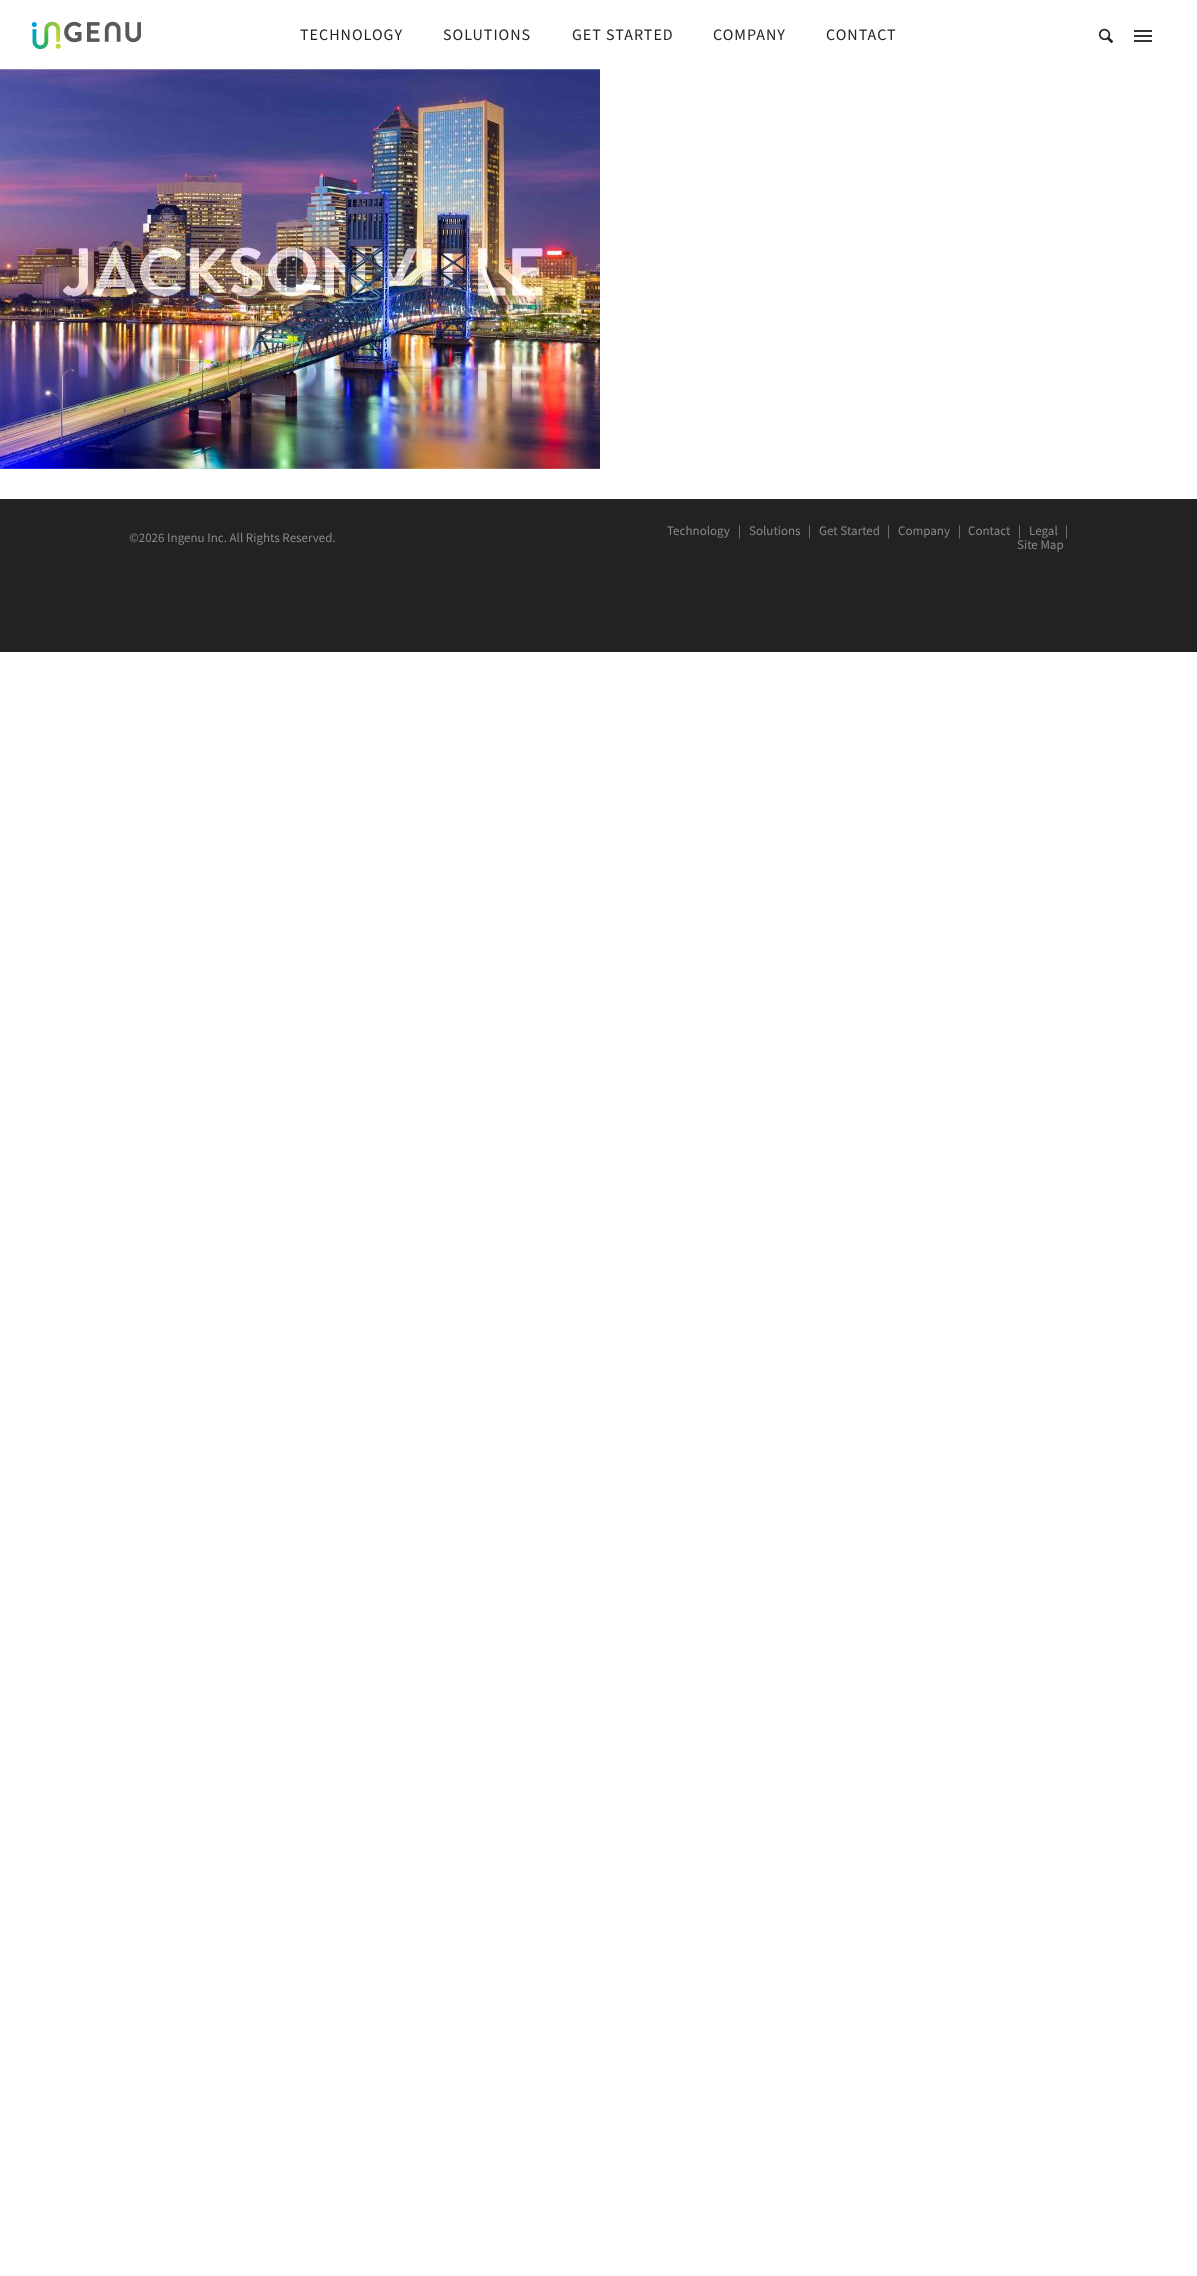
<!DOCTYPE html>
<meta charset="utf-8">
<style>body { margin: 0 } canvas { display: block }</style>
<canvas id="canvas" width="1197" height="2276"></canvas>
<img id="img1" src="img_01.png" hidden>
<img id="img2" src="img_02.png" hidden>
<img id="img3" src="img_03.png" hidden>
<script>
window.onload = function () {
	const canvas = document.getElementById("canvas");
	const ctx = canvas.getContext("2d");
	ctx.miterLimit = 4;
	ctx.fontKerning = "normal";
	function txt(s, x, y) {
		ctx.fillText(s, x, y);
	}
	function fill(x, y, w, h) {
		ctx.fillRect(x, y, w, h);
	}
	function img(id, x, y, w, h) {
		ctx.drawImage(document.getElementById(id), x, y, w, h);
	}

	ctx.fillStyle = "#FFFFFF";
	fill(0, 0, 1197, 2276);
	img("img1", 31, 21, 110, 29);
	img("img2", 1098, 28, 16, 15);
	ctx.fillStyle = "#323232";
	fill(1134, 30, 18, 2);
	fill(1134, 35, 18, 2);
	fill(1134, 40, 18, 2);
	img("img3", 0, 69, 600, 400);
	ctx.fillStyle = "#222222";
	fill(0, 499, 1197, 153);
	ctx.letterSpacing = "1px";
	ctx.font = "16px Source Sans Pro";
	ctx.fillStyle = "#232323";
	txt("TECHNOLOGY", 300, 40);
	txt("SOLUTIONS", 443, 40);
	txt("GET STARTED", 572, 40);
	txt("COMPANY", 713, 40);
	txt("CONTACT", 826, 40);
	ctx.letterSpacing = "0px";
	ctx.font = "13px Source Sans Pro";
	ctx.fillStyle = "#888888";
	txt("©2026 Ingenu Inc. All Rights Reserved.", 129, 542);
	txt("Technology", 667, 535);
	txt("|", 738, 535);
	txt("Solutions", 749, 535);
	txt("|", 808, 535);
	txt("Get Started", 819, 535);
	txt("|", 887, 535);
	txt("Company", 898, 535);
	txt("|", 958, 535);
	txt("Contact", 968, 535);
	txt("|", 1018, 535);
	txt("Legal", 1029, 535);
	txt("|", 1065, 535);
	txt("Site Map", 1017, 549);
};
</script>
